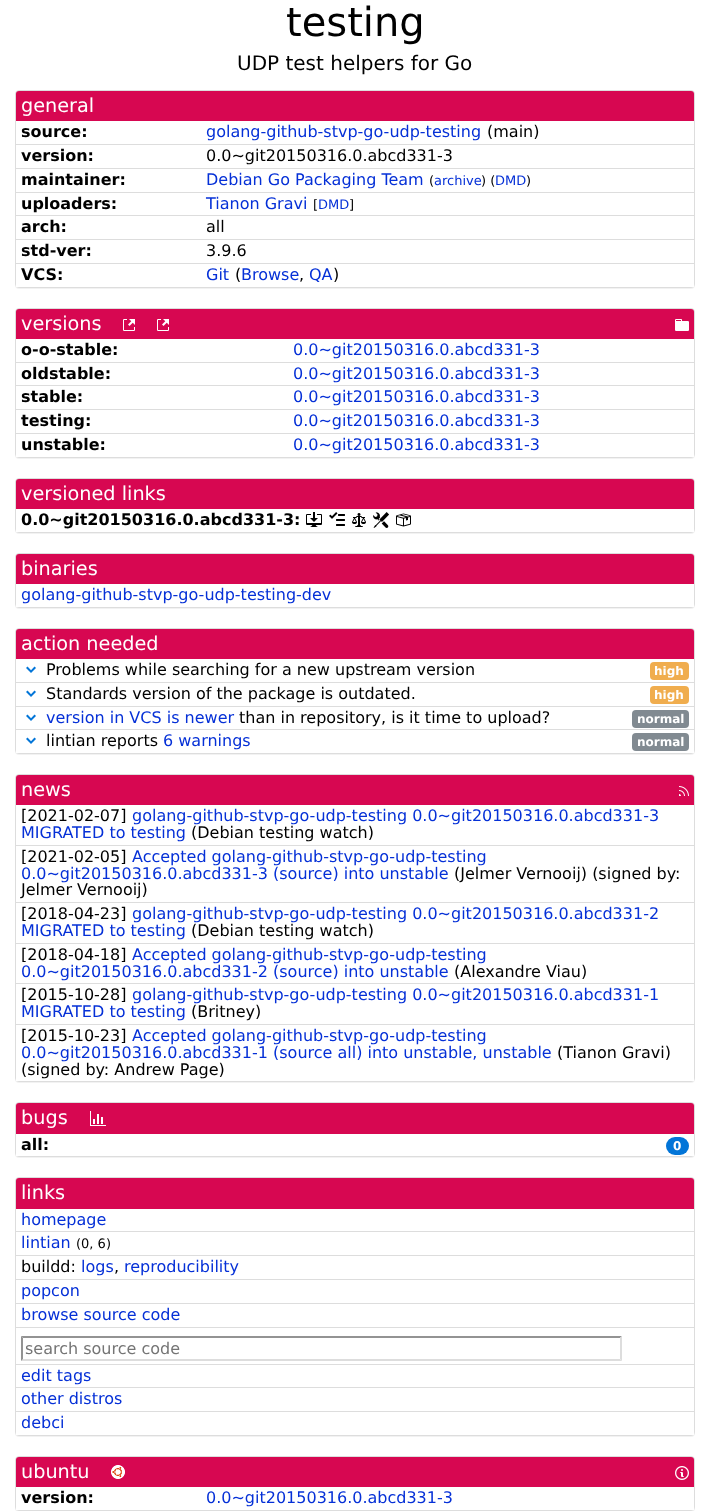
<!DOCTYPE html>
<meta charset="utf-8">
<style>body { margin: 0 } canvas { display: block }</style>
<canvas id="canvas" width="710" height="1511"></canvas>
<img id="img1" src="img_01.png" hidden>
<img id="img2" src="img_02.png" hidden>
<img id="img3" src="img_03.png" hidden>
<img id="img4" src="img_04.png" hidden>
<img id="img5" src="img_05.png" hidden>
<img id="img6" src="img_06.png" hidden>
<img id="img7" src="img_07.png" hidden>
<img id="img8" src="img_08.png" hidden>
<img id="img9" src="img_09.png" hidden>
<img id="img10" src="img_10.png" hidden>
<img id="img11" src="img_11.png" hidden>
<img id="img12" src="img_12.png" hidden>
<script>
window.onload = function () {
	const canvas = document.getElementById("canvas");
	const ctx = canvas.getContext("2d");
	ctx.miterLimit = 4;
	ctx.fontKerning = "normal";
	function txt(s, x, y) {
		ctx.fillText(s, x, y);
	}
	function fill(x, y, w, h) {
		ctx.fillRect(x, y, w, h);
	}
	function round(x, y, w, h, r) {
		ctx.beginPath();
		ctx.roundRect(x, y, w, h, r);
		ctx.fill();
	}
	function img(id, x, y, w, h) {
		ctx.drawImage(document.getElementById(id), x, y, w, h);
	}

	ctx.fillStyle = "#FFFFFF";
	fill(0, 0, 710, 1511);
	ctx.fillStyle = "rgba(0, 0, 0, 0.05)";
	ctx.filter = "blur(0.5px)";
	ctx.beginPath();
	ctx.roundRect(15, 91, 680, 198, 4);
	ctx.fill();
	ctx.filter = "none";
	ctx.beginPath();
	ctx.roundRect(15.5, 90.5, 679, 197, 3.5);
	ctx.strokeStyle = "#DDDDDD";
	ctx.stroke();
	ctx.fillStyle = "#D70751";
	ctx.beginPath();
	ctx.roundRect(16, 91, 678, 31, [3, 3, 0, 0]);
	ctx.fill();
	ctx.fillStyle = "#FFFFFF";
	fill(16, 121, 678, 166);
	ctx.fillStyle = "#DDDDDD";
	fill(16, 144, 678, 1);
	fill(16, 168, 678, 1);
	fill(16, 192, 678, 1);
	fill(16, 215, 678, 1);
	fill(16, 239, 678, 1);
	fill(16, 263, 678, 1);
	ctx.fillStyle = "rgba(0, 0, 0, 0.05)";
	ctx.filter = "blur(0.5px)";
	ctx.beginPath();
	ctx.roundRect(15, 309, 680, 150, 4);
	ctx.fill();
	ctx.filter = "none";
	ctx.beginPath();
	ctx.roundRect(15.5, 308.5, 679, 149, 3.5);
	ctx.stroke();
	ctx.fillStyle = "#D70751";
	ctx.beginPath();
	ctx.roundRect(16, 309, 678, 31, [3, 3, 0, 0]);
	ctx.fill();
	img("img1", 123, 319, 12, 12);
	img("img1", 157, 319, 12, 12);
	img("img2", 675, 319, 14, 12);
	ctx.fillStyle = "#FFFFFF";
	fill(16, 339, 678, 118);
	ctx.fillStyle = "#DDDDDD";
	fill(16, 362, 678, 1);
	fill(16, 385, 678, 1);
	fill(16, 409, 678, 1);
	fill(16, 433, 678, 1);
	ctx.fillStyle = "rgba(0, 0, 0, 0.05)";
	ctx.filter = "blur(0.5px)";
	ctx.beginPath();
	ctx.roundRect(15, 479, 680, 55, 4);
	ctx.fill();
	ctx.filter = "none";
	ctx.beginPath();
	ctx.roundRect(15.5, 478.5, 679, 54, 3.5);
	ctx.stroke();
	ctx.fillStyle = "#D70751";
	ctx.beginPath();
	ctx.roundRect(16, 479, 678, 31, [3, 3, 0, 0]);
	ctx.fill();
	ctx.fillStyle = "#FFFFFF";
	fill(16, 509, 678, 23);
	img("img3", 306, 512, 16, 15);
	img("img4", 329, 512, 16, 14);
	img("img5", 352, 513, 14, 14);
	img("img6", 373, 512, 16, 16);
	img("img7", 396, 513, 15, 14);
	ctx.fillStyle = "rgba(0, 0, 0, 0.05)";
	ctx.filter = "blur(0.5px)";
	ctx.beginPath();
	ctx.roundRect(15, 554, 680, 55, 4);
	ctx.fill();
	ctx.filter = "none";
	ctx.beginPath();
	ctx.roundRect(15.5, 553.5, 679, 54, 3.5);
	ctx.stroke();
	ctx.fillStyle = "#D70751";
	ctx.beginPath();
	ctx.roundRect(16, 554, 678, 31, [3, 3, 0, 0]);
	ctx.fill();
	ctx.fillStyle = "#FFFFFF";
	fill(16, 584, 678, 23);
	ctx.fillStyle = "rgba(0, 0, 0, 0.05)";
	ctx.filter = "blur(0.5px)";
	ctx.beginPath();
	ctx.roundRect(15, 629, 680, 126, 4);
	ctx.fill();
	ctx.filter = "none";
	ctx.beginPath();
	ctx.roundRect(15.5, 628.5, 679, 125, 3.5);
	ctx.stroke();
	ctx.fillStyle = "#D70751";
	ctx.beginPath();
	ctx.roundRect(16, 629, 678, 31, [3, 3, 0, 0]);
	ctx.fill();
	ctx.fillStyle = "#FFFFFF";
	fill(16, 659, 678, 94);
	ctx.fillStyle = "#DDDDDD";
	fill(16, 682, 678, 1);
	img("img8", 26, 666, 10, 7);
	ctx.fillStyle = "#F0AD4E";
	round(650, 662, 39, 18, 4);
	ctx.fillStyle = "#DDDDDD";
	fill(16, 706, 678, 1);
	img("img8", 26, 690, 10, 7);
	ctx.fillStyle = "#F0AD4E";
	round(650, 686, 39, 18, 4);
	img("img8", 26, 714, 10, 7);
	ctx.fillStyle = "#818A91";
	round(632, 710, 57, 18, 4);
	ctx.fillStyle = "#DDDDDD";
	fill(16, 729, 678, 1);
	img("img8", 26, 737, 10, 7);
	ctx.fillStyle = "#818A91";
	round(632, 733, 57, 18, 4);
	ctx.fillStyle = "rgba(0, 0, 0, 0.05)";
	ctx.filter = "blur(0.5px)";
	ctx.beginPath();
	ctx.roundRect(15, 775, 680, 308, 4);
	ctx.fill();
	ctx.filter = "none";
	ctx.beginPath();
	ctx.roundRect(15.5, 774.5, 679, 307, 3.5);
	ctx.stroke();
	ctx.fillStyle = "#D70751";
	ctx.beginPath();
	ctx.roundRect(16, 775, 678, 31, [3, 3, 0, 0]);
	ctx.fill();
	img("img9", 679, 786, 10, 10);
	ctx.fillStyle = "#FFFFFF";
	fill(16, 805, 678, 276);
	ctx.fillStyle = "#DDDDDD";
	fill(16, 845, 678, 1);
	fill(16, 902, 678, 1);
	fill(16, 943, 678, 1);
	fill(16, 983, 678, 1);
	fill(16, 1024, 678, 1);
	ctx.fillStyle = "rgba(0, 0, 0, 0.05)";
	ctx.filter = "blur(0.5px)";
	ctx.beginPath();
	ctx.roundRect(15, 1103, 680, 55, 4);
	ctx.fill();
	ctx.filter = "none";
	ctx.beginPath();
	ctx.roundRect(15.5, 1102.5, 679, 54, 3.5);
	ctx.stroke();
	ctx.fillStyle = "#D70751";
	ctx.beginPath();
	ctx.roundRect(16, 1103, 678, 32, [3, 3, 0, 0]);
	ctx.fill();
	img("img10", 90, 1111, 16, 15);
	ctx.fillStyle = "#FFFFFF";
	fill(16, 1134, 678, 22);
	ctx.fillStyle = "#0275D8";
	round(666, 1137, 23, 18, 9);
	ctx.fillStyle = "rgba(0, 0, 0, 0.05)";
	ctx.filter = "blur(0.5px)";
	ctx.beginPath();
	ctx.roundRect(15, 1178, 680, 259, 4);
	ctx.fill();
	ctx.filter = "none";
	ctx.beginPath();
	ctx.roundRect(15.5, 1177.5, 679, 258, 3.5);
	ctx.stroke();
	ctx.fillStyle = "#D70751";
	ctx.beginPath();
	ctx.roundRect(16, 1178, 678, 32, [3, 3, 0, 0]);
	ctx.fill();
	ctx.fillStyle = "#FFFFFF";
	fill(16, 1209, 678, 226);
	ctx.fillStyle = "#DDDDDD";
	fill(16, 1231, 678, 1);
	fill(16, 1255, 678, 1);
	fill(16, 1279, 678, 1);
	fill(16, 1303, 678, 1);
	fill(16, 1327, 678, 1);
	fill(16, 1364, 678, 1);
	ctx.fillStyle = "#939393";
	ctx.beginPath();
	ctx.moveTo(21, 1336);
	ctx.lineTo(622, 1336);
	ctx.lineTo(620, 1338);
	ctx.lineTo(23, 1338);
	ctx.closePath();
	ctx.fill();
	ctx.fillStyle = "#DDDDDD";
	ctx.beginPath();
	ctx.moveTo(622, 1336);
	ctx.lineTo(622, 1361);
	ctx.lineTo(620, 1359);
	ctx.lineTo(620, 1338);
	ctx.closePath();
	ctx.fill();
	ctx.beginPath();
	ctx.moveTo(622, 1361);
	ctx.lineTo(21, 1361);
	ctx.lineTo(23, 1359);
	ctx.lineTo(620, 1359);
	ctx.closePath();
	ctx.fill();
	ctx.fillStyle = "#939393";
	ctx.beginPath();
	ctx.moveTo(21, 1361);
	ctx.lineTo(21, 1336);
	ctx.lineTo(23, 1338);
	ctx.lineTo(23, 1359);
	ctx.closePath();
	ctx.fill();
	ctx.fillStyle = "#DDDDDD";
	fill(16, 1387, 678, 1);
	fill(16, 1411, 678, 1);
	ctx.fillStyle = "rgba(0, 0, 0, 0.05)";
	ctx.filter = "blur(0.5px)";
	ctx.beginPath();
	ctx.roundRect(15, 1457, 680, 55, 4);
	ctx.fill();
	ctx.filter = "none";
	ctx.beginPath();
	ctx.roundRect(15.5, 1456.5, 679, 54, 3.5);
	ctx.stroke();
	ctx.fillStyle = "#D70751";
	ctx.beginPath();
	ctx.roundRect(16, 1457, 678, 31, [3, 3, 0, 0]);
	ctx.fill();
	img("img11", 111, 1465, 14, 14);
	img("img12", 675, 1466, 14, 14);
	ctx.fillStyle = "#FFFFFF";
	fill(16, 1487, 678, 23);
	ctx.font = "40px DejaVu Sans";
	ctx.fillStyle = "#000000";
	txt("testing", 286, 36);
	ctx.font = "20px DejaVu Sans";
	txt("UDP test helpers for Go", 237, 70);
	ctx.font = "19.25px DejaVu Sans";
	ctx.fillStyle = "#FFFFFF";
	txt("general", 21, 112);
	ctx.font = "bold 16px DejaVu Sans";
	ctx.fillStyle = "#000000";
	txt("source:", 21, 137);
	ctx.font = "16px DejaVu Sans";
	ctx.fillStyle = "#0530D7";
	txt("golang-github-stvp-go-udp-testing", 206, 137);
	ctx.fillStyle = "#000000";
	txt("(main)", 487, 137);
	ctx.font = "bold 16px DejaVu Sans";
	txt("version:", 21, 161);
	ctx.font = "16px DejaVu Sans";
	txt("0.0~git20150316.0.abcd331-3", 206, 161);
	ctx.font = "bold 16px DejaVu Sans";
	txt("maintainer:", 21, 185);
	ctx.font = "16px DejaVu Sans";
	ctx.fillStyle = "#0530D7";
	txt("Debian Go Packaging Team", 206, 185);
	ctx.font = "13px DejaVu Sans";
	ctx.fillStyle = "#000000";
	txt("(", 429, 185);
	ctx.fillStyle = "#0530D7";
	txt("archive", 434, 185);
	ctx.fillStyle = "#000000";
	txt(") (", 481, 185);
	ctx.fillStyle = "#0530D7";
	txt("DMD", 495, 185);
	ctx.fillStyle = "#000000";
	txt(")", 526, 185);
	ctx.font = "bold 16px DejaVu Sans";
	txt("uploaders:", 21, 209);
	ctx.font = "16px DejaVu Sans";
	ctx.fillStyle = "#0530D7";
	txt("Tianon Gravi", 206, 209);
	ctx.font = "13px DejaVu Sans";
	ctx.fillStyle = "#000000";
	txt("[", 313, 209);
	ctx.fillStyle = "#0530D7";
	txt("DMD", 318, 209);
	ctx.fillStyle = "#000000";
	txt("]", 349, 209);
	ctx.font = "bold 16px DejaVu Sans";
	txt("arch:", 21, 232);
	ctx.font = "16px DejaVu Sans";
	txt("all", 206, 232);
	ctx.font = "bold 16px DejaVu Sans";
	txt("std-ver:", 21, 256);
	ctx.font = "16px DejaVu Sans";
	txt("3.9.6", 206, 256);
	ctx.font = "bold 16px DejaVu Sans";
	txt("VCS:", 21, 280);
	ctx.font = "16px DejaVu Sans";
	ctx.fillStyle = "#0530D7";
	txt("Git", 206, 280);
	ctx.fillStyle = "#000000";
	txt("(", 235, 280);
	ctx.fillStyle = "#0530D7";
	txt("Browse", 241, 280);
	ctx.fillStyle = "#000000";
	txt(",", 299, 280);
	ctx.fillStyle = "#0530D7";
	txt("QA", 309, 280);
	ctx.fillStyle = "#000000";
	txt(")", 333, 280);
	ctx.font = "19.25px DejaVu Sans";
	ctx.fillStyle = "#FFFFFF";
	txt("versions", 21, 330);
	ctx.font = "bold 16px DejaVu Sans";
	ctx.fillStyle = "#000000";
	txt("o-o-stable:", 21, 355);
	ctx.font = "16px DejaVu Sans";
	ctx.fillStyle = "#0530D7";
	txt("0.0~git20150316.0.abcd331-3", 293, 355);
	ctx.font = "bold 16px DejaVu Sans";
	ctx.fillStyle = "#000000";
	txt("oldstable:", 21, 379);
	ctx.font = "16px DejaVu Sans";
	ctx.fillStyle = "#0530D7";
	txt("0.0~git20150316.0.abcd331-3", 293, 379);
	ctx.font = "bold 16px DejaVu Sans";
	ctx.fillStyle = "#000000";
	txt("stable:", 21, 402);
	ctx.font = "16px DejaVu Sans";
	ctx.fillStyle = "#0530D7";
	txt("0.0~git20150316.0.abcd331-3", 293, 402);
	ctx.font = "bold 16px DejaVu Sans";
	ctx.fillStyle = "#000000";
	txt("testing:", 21, 426);
	ctx.font = "16px DejaVu Sans";
	ctx.fillStyle = "#0530D7";
	txt("0.0~git20150316.0.abcd331-3", 293, 426);
	ctx.font = "bold 16px DejaVu Sans";
	ctx.fillStyle = "#000000";
	txt("unstable:", 21, 450);
	ctx.font = "16px DejaVu Sans";
	ctx.fillStyle = "#0530D7";
	txt("0.0~git20150316.0.abcd331-3", 293, 450);
	ctx.font = "19.25px DejaVu Sans";
	ctx.fillStyle = "#FFFFFF";
	txt("versioned links", 21, 500);
	ctx.font = "bold 16px DejaVu Sans";
	ctx.fillStyle = "#000000";
	txt("0.0~git20150316.0.abcd331-3:", 21, 525);
	ctx.font = "19.25px DejaVu Sans";
	ctx.fillStyle = "#FFFFFF";
	txt("binaries", 21, 575);
	ctx.font = "16px DejaVu Sans";
	ctx.fillStyle = "#0530D7";
	txt("golang-github-stvp-go-udp-testing-dev", 21, 600);
	ctx.font = "19.25px DejaVu Sans";
	ctx.fillStyle = "#FFFFFF";
	txt("action needed", 21, 650);
	ctx.font = "16px DejaVu Sans";
	ctx.fillStyle = "#000000";
	txt("Problems while searching for a new upstream version", 46, 675);
	ctx.font = "bold 12px DejaVu Sans";
	ctx.fillStyle = "#FFFFFF";
	txt("high", 654, 675);
	ctx.font = "16px DejaVu Sans";
	ctx.fillStyle = "#000000";
	txt("Standards version of the package is outdated.", 46, 699);
	ctx.font = "bold 12px DejaVu Sans";
	ctx.fillStyle = "#FFFFFF";
	txt("high", 654, 699);
	ctx.font = "16px DejaVu Sans";
	ctx.fillStyle = "#0530D7";
	txt("version in VCS is newer", 46, 723);
	ctx.fillStyle = "#000000";
	txt("than in repository, is it time to upload?", 239, 723);
	ctx.font = "bold 12px DejaVu Sans";
	ctx.fillStyle = "#FFFFFF";
	txt("normal", 637, 723);
	ctx.font = "16px DejaVu Sans";
	ctx.fillStyle = "#000000";
	txt("lintian reports", 46, 746);
	ctx.fillStyle = "#0530D7";
	txt("6 warnings", 163, 746);
	ctx.font = "bold 12px DejaVu Sans";
	ctx.fillStyle = "#FFFFFF";
	txt("normal", 637, 746);
	ctx.font = "19.25px DejaVu Sans";
	txt("news", 21, 796);
	ctx.font = "16px DejaVu Sans";
	ctx.fillStyle = "#000000";
	txt("[2021-02-07]", 21, 821);
	ctx.fillStyle = "#0530D7";
	txt("golang-github-stvp-go-udp-testing 0.0~git20150316.0.abcd331-3", 132, 821);
	txt("MIGRATED to testing", 21, 838);
	ctx.fillStyle = "#000000";
	txt("(Debian testing watch)", 191, 838);
	txt("[2021-02-05]", 21, 862);
	ctx.fillStyle = "#0530D7";
	txt("Accepted golang-github-stvp-go-udp-testing", 132, 862);
	txt("0.0~git20150316.0.abcd331-3 (source) into unstable", 21, 879);
	ctx.fillStyle = "#000000";
	txt("(Jelmer Vernooĳ) (signed by:", 454, 879);
	txt("Jelmer Vernooij)", 21, 895);
	txt("[2018-04-23]", 21, 919);
	ctx.fillStyle = "#0530D7";
	txt("golang-github-stvp-go-udp-testing 0.0~git20150316.0.abcd331-2", 132, 919);
	txt("MIGRATED to testing", 21, 936);
	ctx.fillStyle = "#000000";
	txt("(Debian testing watch)", 191, 936);
	txt("[2018-04-18]", 21, 960);
	ctx.fillStyle = "#0530D7";
	txt("Accepted golang-github-stvp-go-udp-testing", 132, 960);
	txt("0.0~git20150316.0.abcd331-2 (source) into unstable", 21, 977);
	ctx.fillStyle = "#000000";
	txt("(Alexandre Viau)", 454, 977);
	txt("[2015-10-28]", 21, 1000);
	ctx.fillStyle = "#0530D7";
	txt("golang-github-stvp-go-udp-testing 0.0~git20150316.0.abcd331-1", 132, 1000);
	txt("MIGRATED to testing", 21, 1017);
	ctx.fillStyle = "#000000";
	txt("(Britney)", 191, 1017);
	txt("[2015-10-23]", 21, 1041);
	ctx.fillStyle = "#0530D7";
	txt("Accepted golang-github-stvp-go-udp-testing", 132, 1041);
	txt("0.0~git20150316.0.abcd331-1 (source all) into unstable, unstable", 21, 1058);
	ctx.fillStyle = "#000000";
	txt("(Tianon Gravi)", 557, 1058);
	txt("(signed by: Andrew Page)", 21, 1075);
	ctx.font = "19.25px DejaVu Sans";
	ctx.fillStyle = "#FFFFFF";
	txt("bugs", 21, 1124);
	ctx.font = "bold 16px DejaVu Sans";
	ctx.fillStyle = "#000000";
	txt("all:", 21, 1150);
	ctx.font = "bold 12px DejaVu Sans";
	ctx.fillStyle = "#FFFFFF";
	txt("0", 673, 1150);
	ctx.font = "19.25px DejaVu Sans";
	txt("links", 21, 1199);
	ctx.font = "16px DejaVu Sans";
	ctx.fillStyle = "#0530D7";
	txt("homepage", 21, 1225);
	txt("lintian", 21, 1248);
	ctx.font = "13px DejaVu Sans";
	ctx.fillStyle = "#000000";
	txt("(0, 6)", 76, 1248);
	ctx.font = "16px DejaVu Sans";
	txt("buildd:", 21, 1272);
	ctx.fillStyle = "#0530D7";
	txt("logs", 81, 1272);
	ctx.fillStyle = "#000000";
	txt(",", 114, 1272);
	ctx.fillStyle = "#0530D7";
	txt("reproducibility", 124, 1272);
	txt("popcon", 21, 1296);
	txt("browse source code", 21, 1320);
	ctx.fillStyle = "#757575";
	txt("search source code", 25, 1354);
	ctx.fillStyle = "#0530D7";
	txt("edit tags", 21, 1381);
	txt("other distros", 21, 1404);
	txt("debci", 21, 1428);
	ctx.font = "19.25px DejaVu Sans";
	ctx.fillStyle = "#FFFFFF";
	txt("ubuntu", 21, 1478);
	ctx.font = "bold 16px DejaVu Sans";
	ctx.fillStyle = "#000000";
	txt("version:", 21, 1503);
	ctx.font = "16px DejaVu Sans";
	ctx.fillStyle = "#0530D7";
	txt("0.0~git20150316.0.abcd331-3", 206, 1503);
};
</script>
